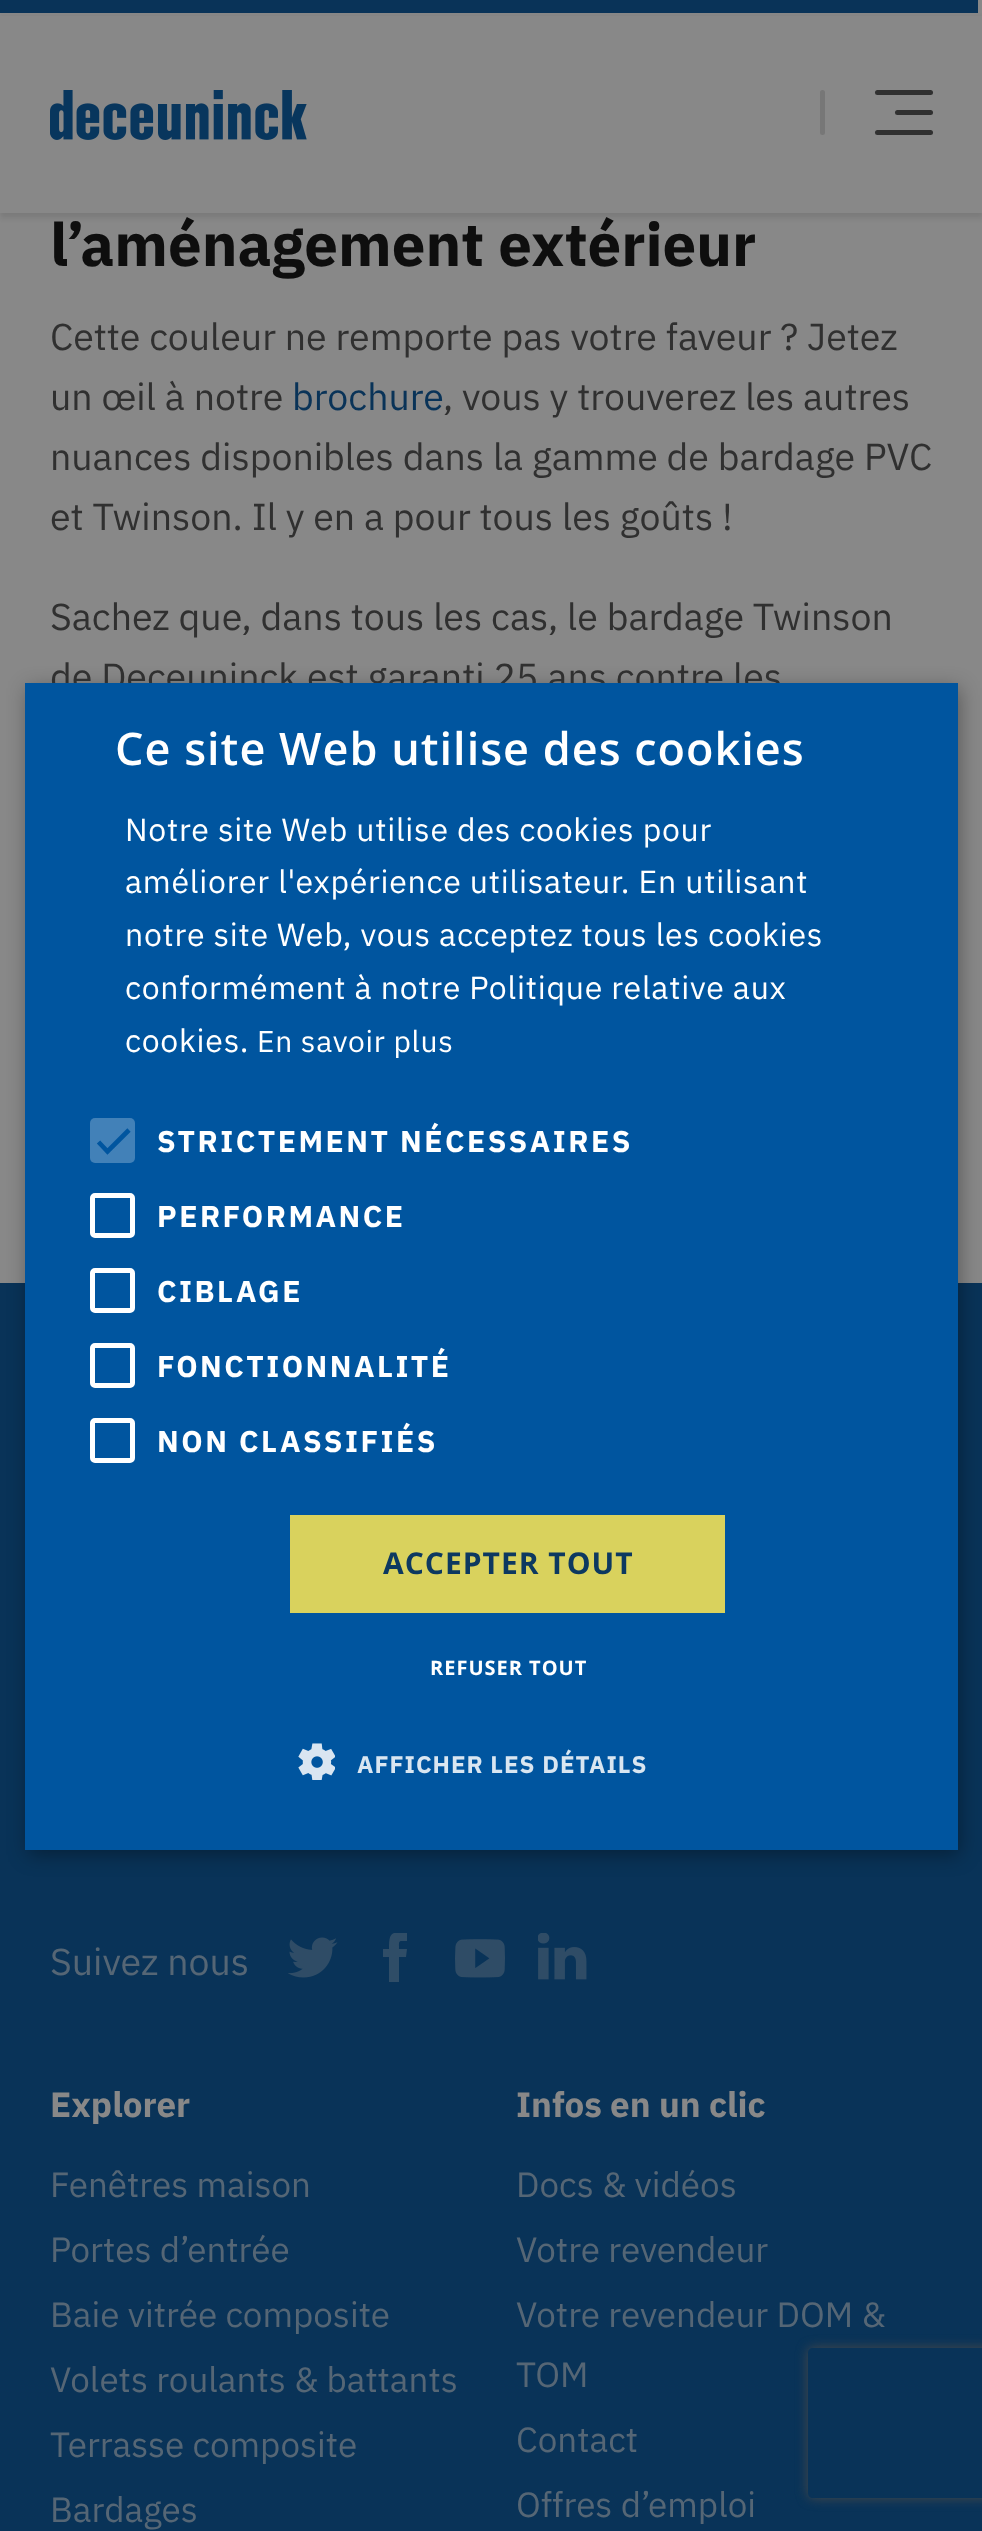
<!DOCTYPE html>
<meta charset="utf-8">
<style>body { margin: 0 } canvas { display: block }</style>
<canvas id="canvas" width="982" height="2531"></canvas>
<img id="img1" src="img_01.png" hidden>
<img id="img2" src="img_03.png" hidden>
<img id="img3" src="img_04.png" hidden>
<img id="img4" src="img_05.png" hidden>
<img id="img5" src="img_02.png" hidden>
<script>
window.onload = function () {
	const canvas = document.getElementById("canvas");
	const ctx = canvas.getContext("2d");
	ctx.miterLimit = 4;
	ctx.fontKerning = "normal";
	function txt(s, x, y) {
		ctx.fillText(s, x, y);
	}
	function fill(x, y, w, h) {
		ctx.fillRect(x, y, w, h);
	}
	function round(x, y, w, h, r) {
		ctx.beginPath();
		ctx.roundRect(x, y, w, h, r);
		ctx.fill();
	}
	function img(id, x, y, w, h) {
		ctx.drawImage(document.getElementById(id), x, y, w, h);
	}

	ctx.fillStyle = "#888888";
	fill(0, 0, 982, 2531);
	ctx.fillStyle = "#093358";
	fill(0, 0, 978, 13);
	ctx.fillStyle = "rgba(9, 9, 9, 0.1)";
	ctx.filter = "blur(2.5px)";
	ctx.beginPath();
	ctx.rect(0, 18, 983, 200);
	ctx.fill();
	ctx.filter = "none";
	ctx.fillStyle = "#888888";
	fill(0, 16, 982, 197);
	img("img1", 50, 90, 257, 50);
	ctx.fillStyle = "#777777";
	round(820, 90, 5, 45, 2.5);
	ctx.fillStyle = "#303030";
	round(875, 90, 58, 5, 2.5);
	round(895, 110, 38, 5, 2.5);
	round(875, 130, 58, 5, 2.5);
	ctx.fillStyle = "#093358";
	fill(0, 1283, 982, 1248);
	ctx.fillStyle = "rgba(0, 0, 0, 0.35)";
	ctx.filter = "blur(10px)";
	ctx.beginPath();
	ctx.rect(28, 688, 932, 1167);
	ctx.fill();
	ctx.filter = "none";
	img("img2", 288, 1937, 50, 41);
	ctx.save();
	ctx.beginPath();
	ctx.rect(370, 1933, 50, 50);
	ctx.clip();
	ctx.fillStyle = "#2F4D67";
	ctx.beginPath();
	ctx.moveTo(383, 1949);
	ctx.lineTo(383, 1957);
	ctx.lineTo(389, 1957);
	ctx.lineTo(389, 1982);
	ctx.lineTo(399, 1982);
	ctx.lineTo(399, 1957);
	ctx.lineTo(406, 1957);
	ctx.lineTo(407, 1949);
	ctx.lineTo(399, 1949);
	ctx.bezierCurveTo(399, 1940, 398, 1941, 407, 1941);
	ctx.lineTo(407, 1932);
	ctx.bezierCurveTo(391, 1932, 389, 1932, 389, 1949);
	ctx.closePath();
	ctx.fill("evenodd");
	ctx.restore();
	img("img3", 455, 1939, 50, 39);
	img("img4", 538, 1933, 49, 47);
	ctx.save();
	ctx.beginPath();
	ctx.moveTo(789, 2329);
	ctx.lineTo(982, 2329);
	ctx.lineTo(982, 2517);
	ctx.lineTo(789, 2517);
	ctx.closePath();
	ctx.moveTo(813, 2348);
	ctx.lineTo(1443, 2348);
	ctx.bezierCurveTo(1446, 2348, 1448, 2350, 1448, 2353);
	ctx.lineTo(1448, 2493);
	ctx.bezierCurveTo(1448, 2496, 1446, 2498, 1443, 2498);
	ctx.lineTo(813, 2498);
	ctx.bezierCurveTo(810, 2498, 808, 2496, 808, 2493);
	ctx.lineTo(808, 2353);
	ctx.bezierCurveTo(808, 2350, 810, 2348, 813, 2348);
	ctx.closePath();
	ctx.clip("evenodd");
	ctx.fillStyle = "#494949";
	ctx.filter = "blur(6px)";
	ctx.beginPath();
	ctx.roundRect(808, 2348, 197, 150, 5);
	ctx.fill();
	ctx.filter = "none";
	ctx.restore();
	ctx.font = "bold 60px IBM Plex Sans";
	ctx.fillStyle = "#0E0E0E";
	txt("l’aménagement extérieur", 50, 266);
	ctx.font = "37.5px IBM Plex Sans";
	ctx.fillStyle = "#303030";
	txt("Cette couleur ne remporte pas votre faveur ? Jetez", 50, 350);
	txt("un œil à notre", 50, 410);
	ctx.fillStyle = "#093358";
	txt("brochure", 292, 410);
	ctx.fillStyle = "#303030";
	txt(", vous y trouverez les autres", 443, 410);
	txt("nuances disponibles dans la gamme de bardage PVC", 50, 470);
	txt("et Twinson. Il y en a pour tous les goûts !", 50, 530);
	txt("Sachez que, dans tous les cas, le bardage Twinson", 50, 630);
	txt("de Deceuninck est garanti 25 ans contre les", 50, 690);
	ctx.fillStyle = "#00559F";
	fill(25, 683, 933, 1167);
	ctx.letterSpacing = "1px";
	ctx.font = "600 45px Open Sans";
	ctx.fillStyle = "#FFFFFF";
	txt("Ce site Web utilise des cookies", 115, 765);
	ctx.letterSpacing = "0.75px";
	ctx.font = "32px IBM Plex Sans";
	txt("Notre site Web utilise des cookies pour", 125, 841);
	txt("améliorer l'expérience utilisateur. En utilisant", 125, 893);
	txt("notre site Web, vous acceptez tous les cookies", 125, 946);
	txt("conformément à notre Politique relative aux", 125, 999);
	txt("cookies.", 125, 1052);
	ctx.font = "30px IBM Plex Sans";
	txt("En savoir plus", 257, 1052);
	ctx.fillStyle = "#4281B8";
	round(90, 1118, 45, 45, 5);
	ctx.beginPath();
	ctx.moveTo(98.5, 1142);
	ctx.lineTo(107.5, 1151.5);
	ctx.lineTo(129, 1130);
	ctx.strokeStyle = "#00559F";
	ctx.lineWidth = 4.6;
	ctx.stroke();
	ctx.letterSpacing = "2.5px";
	ctx.font = "bold 30px IBM Plex Sans";
	ctx.fillStyle = "#FFFFFF";
	txt("STRICTEMENT NÉCESSAIRES", 157, 1152);
	ctx.beginPath();
	ctx.roundRect(92.5, 1195.5, 40, 40, 2.5);
	ctx.strokeStyle = "#FFFFFF";
	ctx.lineWidth = 5;
	ctx.stroke();
	txt("PERFORMANCE", 157, 1227);
	ctx.beginPath();
	ctx.roundRect(92.5, 1270.5, 40, 40, 2.5);
	ctx.stroke();
	txt("CIBLAGE", 157, 1302);
	ctx.beginPath();
	ctx.roundRect(92.5, 1345.5, 40, 40, 2.5);
	ctx.stroke();
	txt("FONCTIONNALITÉ", 157, 1377);
	ctx.beginPath();
	ctx.roundRect(92.5, 1420.5, 40, 40, 2.5);
	ctx.stroke();
	txt("NON CLASSIFIÉS", 157, 1452);
	ctx.fillStyle = "#D9D25D";
	fill(290, 1515, 435, 98);
	ctx.letterSpacing = "1px";
	ctx.font = "bold 30px Open Sans";
	ctx.fillStyle = "#0D3960";
	txt("ACCEPTER TOUT", 383, 1574);
	ctx.font = "bold 20px Open Sans";
	ctx.fillStyle = "#FFFFFF";
	txt("REFUSER TOUT", 430, 1675);
	img("img5", 298, 1743, 37, 37);
	ctx.font = "bold 24px IBM Plex Sans";
	ctx.fillStyle = "#D9E6F1";
	txt("AFFICHER LES DÉTAILS", 357, 1773);
	ctx.letterSpacing = "0px";
	ctx.font = "37.5px IBM Plex Sans";
	ctx.fillStyle = "#556675";
	txt("Suivez nous", 50, 1975);
	ctx.font = "bold 35px IBM Plex Sans";
	ctx.fillStyle = "#888888";
	txt("Explorer", 50, 2117);
	ctx.font = "35px IBM Plex Sans";
	ctx.fillStyle = "#556675";
	txt("Fenêtres maison", 50, 2197);
	txt("Portes d’entrée", 50, 2262);
	txt("Baie vitrée composite", 50, 2327);
	txt("Volets roulants & battants", 50, 2392);
	txt("Terrasse composite", 50, 2457);
	txt("Bardages", 50, 2522);
	ctx.font = "bold 35px IBM Plex Sans";
	ctx.fillStyle = "#888888";
	txt("Infos en un clic", 516, 2117);
	ctx.font = "35px IBM Plex Sans";
	ctx.fillStyle = "#556675";
	txt("Docs & vidéos", 516, 2197);
	txt("Votre revendeur", 516, 2262);
	txt("Votre revendeur DOM &", 516, 2327);
	txt("TOM", 516, 2387);
	txt("Contact", 516, 2452);
	txt("Offres d’emploi", 516, 2517);
};
</script>
